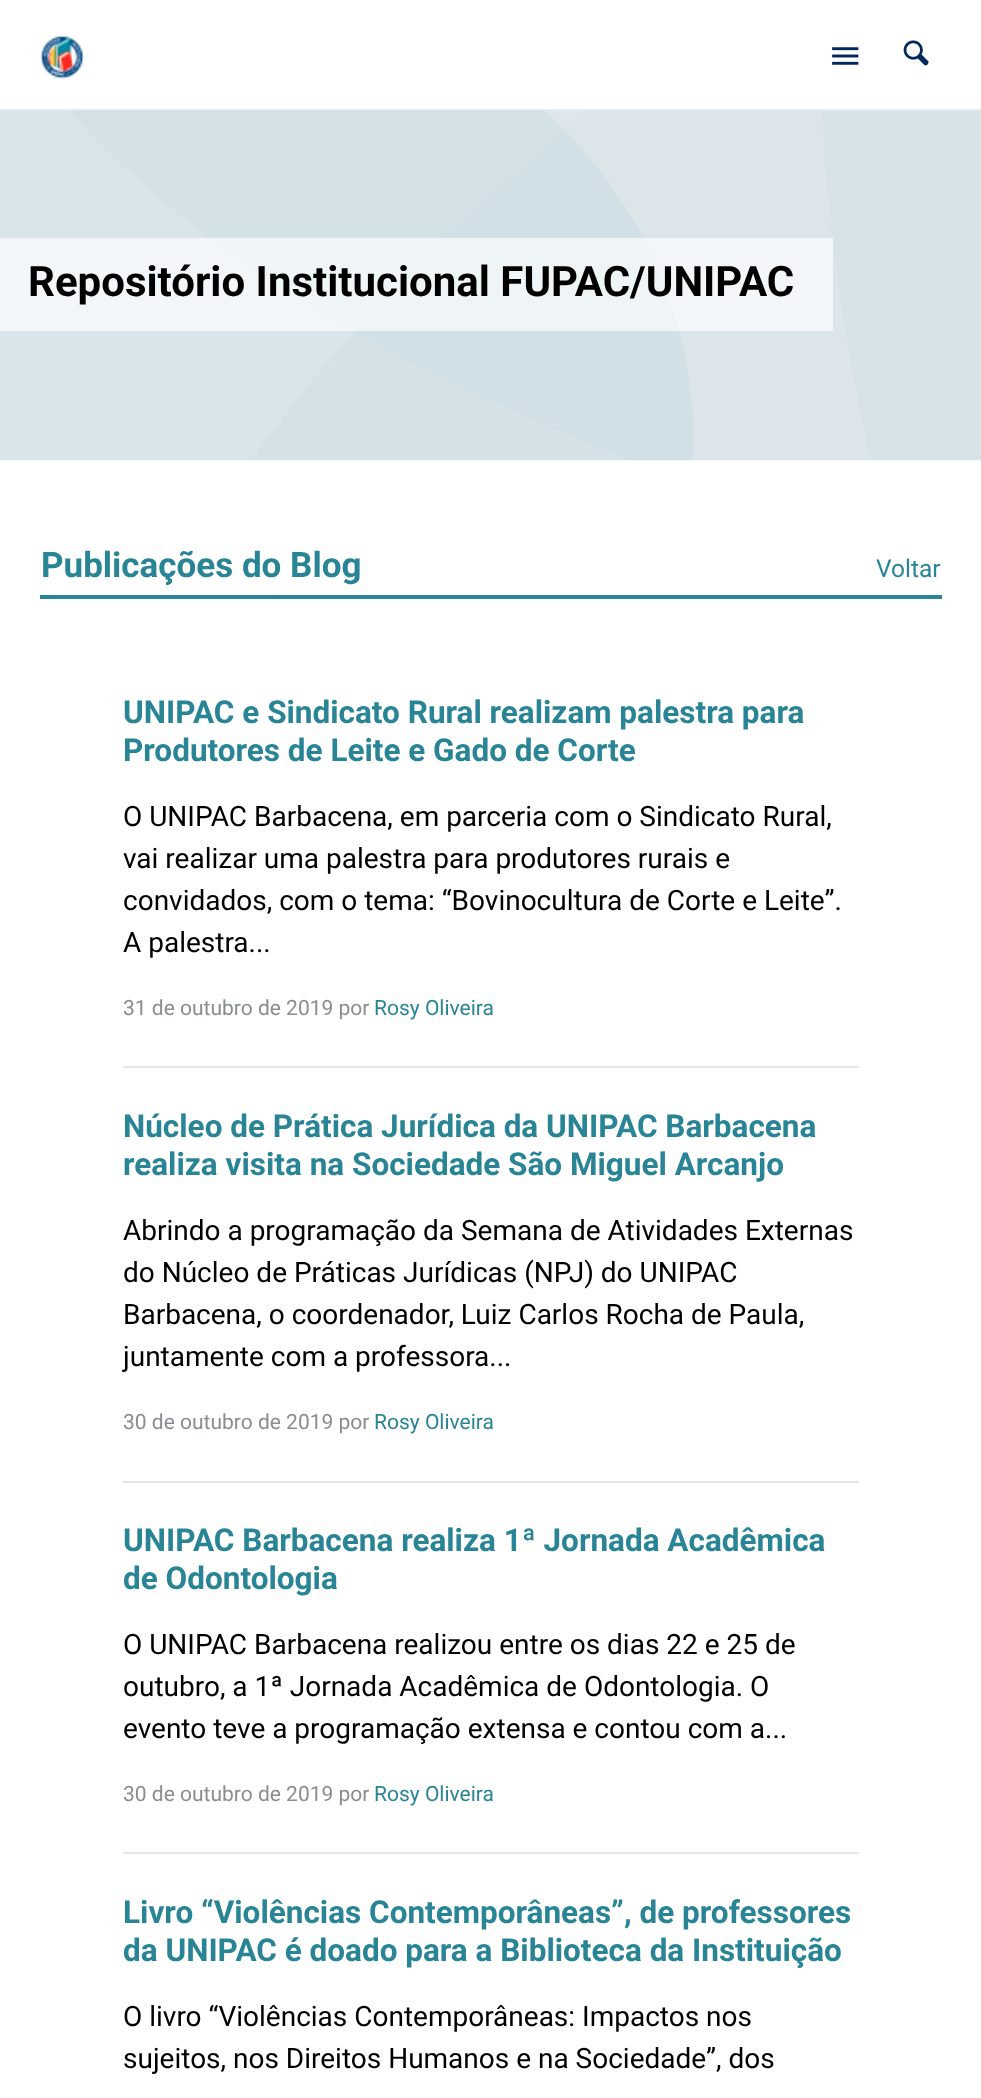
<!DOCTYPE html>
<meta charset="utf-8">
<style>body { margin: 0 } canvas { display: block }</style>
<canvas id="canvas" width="981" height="2098"></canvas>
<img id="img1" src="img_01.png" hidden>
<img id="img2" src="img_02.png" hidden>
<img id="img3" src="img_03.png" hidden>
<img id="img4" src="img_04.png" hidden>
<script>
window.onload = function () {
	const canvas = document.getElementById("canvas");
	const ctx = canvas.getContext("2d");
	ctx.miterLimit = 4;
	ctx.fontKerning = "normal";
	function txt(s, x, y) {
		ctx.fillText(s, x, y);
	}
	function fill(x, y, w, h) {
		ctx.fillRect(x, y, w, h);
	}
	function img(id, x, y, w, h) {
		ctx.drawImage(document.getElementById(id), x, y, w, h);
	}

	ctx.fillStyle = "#FFFFFF";
	fill(0, 0, 981, 2098);
	ctx.fillStyle = "#EDEDED";
	fill(0, 109, 981, 2);
	img("img1", 40, 36, 44, 43);
	img("img2", 832, 47, 27, 18);
	img("img3", 903, 40, 26, 26);
	img("img4", 0, 110, 981, 351);
	ctx.fillStyle = "rgba(255, 255, 255, 0.65)";
	fill(0, 238, 833, 93);
	ctx.fillStyle = "#298596";
	fill(40, 595, 902, 4);
	ctx.fillStyle = "#E5E5E5";
	fill(123, 1066, 736, 2);
	fill(123, 1481, 736, 2);
	fill(123, 1852, 736, 2);
	ctx.font = "bold 42px Roboto";
	ctx.fillStyle = "#000000";
	txt("Repositório Institucional FUPAC/UNIPAC", 28, 296);
	ctx.font = "bold 35px Roboto";
	ctx.fillStyle = "#298596";
	txt("Publicações do Blog", 41, 577);
	ctx.font = "24.5px Roboto";
	txt("Voltar", 876, 577);
	ctx.font = "bold 31.5px Roboto";
	txt("UNIPAC e Sindicato Rural realizam palestra para", 123, 723);
	txt("Produtores de Leite e Gado de Corte", 123, 761);
	ctx.font = "28px Roboto";
	ctx.fillStyle = "#000000";
	txt("O UNIPAC Barbacena, em parceria com o Sindicato Rural,", 123, 826);
	txt("vai realizar uma palestra para produtores rurais e", 123, 868);
	txt("convidados, com o tema: “Bovinocultura de Corte e Leite”.", 123, 910);
	txt("A palestra...", 123, 952);
	ctx.font = "21px Roboto";
	ctx.fillStyle = "#898D8F";
	txt("31 de outubro de 2019 por", 123, 1015);
	ctx.fillStyle = "#298596";
	txt("Rosy Oliveira", 374, 1015);
	ctx.font = "bold 31.5px Roboto";
	txt("Núcleo de Prática Jurídica da UNIPAC Barbacena", 123, 1137);
	txt("realiza visita na Sociedade São Miguel Arcanjo", 123, 1175);
	ctx.font = "28px Roboto";
	ctx.fillStyle = "#000000";
	txt("Abrindo a programação da Semana de Atividades Externas", 123, 1240);
	txt("do Núcleo de Práticas Jurídicas (NPJ) do UNIPAC", 123, 1282);
	txt("Barbacena, o coordenador, Luiz Carlos Rocha de Paula,", 123, 1324);
	txt("juntamente com a professora...", 123, 1366);
	ctx.font = "21px Roboto";
	ctx.fillStyle = "#898D8F";
	txt("30 de outubro de 2019 por", 123, 1429);
	ctx.fillStyle = "#298596";
	txt("Rosy Oliveira", 374, 1429);
	ctx.font = "bold 31.5px Roboto";
	txt("UNIPAC Barbacena realiza 1ª Jornada Acadêmica", 123, 1551);
	txt("de Odontologia", 123, 1589);
	ctx.font = "28px Roboto";
	ctx.fillStyle = "#000000";
	txt("O UNIPAC Barbacena realizou entre os dias 22 e 25 de", 123, 1654);
	txt("outubro, a 1ª Jornada Acadêmica de Odontologia. O", 123, 1696);
	txt("evento teve a programação extensa e contou com a...", 123, 1738);
	ctx.font = "21px Roboto";
	ctx.fillStyle = "#898D8F";
	txt("30 de outubro de 2019 por", 123, 1801);
	ctx.fillStyle = "#298596";
	txt("Rosy Oliveira", 374, 1801);
	ctx.font = "bold 31.5px Roboto";
	txt("Livro “Violências Contemporâneas”, de professores", 123, 1923);
	txt("da UNIPAC é doado para a Biblioteca da Instituição", 123, 1961);
	ctx.font = "28px Roboto";
	ctx.fillStyle = "#000000";
	txt("O livro “Violências Contemporâneas: Impactos nos", 123, 2026);
	txt("sujeitos, nos Direitos Humanos e na Sociedade”, dos", 123, 2068);
};
</script>
